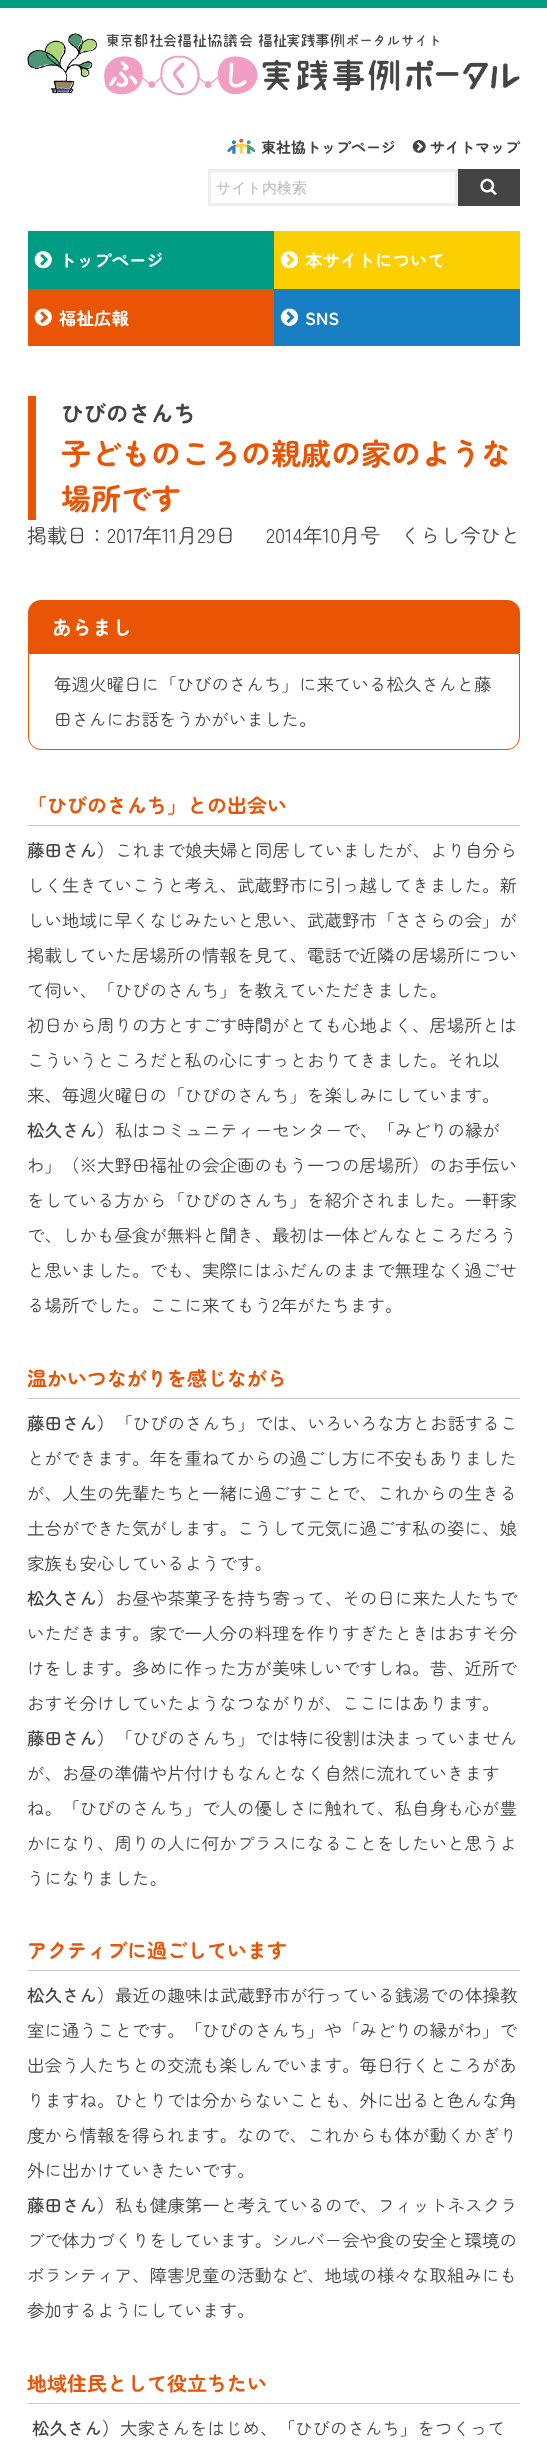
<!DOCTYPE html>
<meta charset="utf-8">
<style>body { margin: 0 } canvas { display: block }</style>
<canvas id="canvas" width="547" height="2444"></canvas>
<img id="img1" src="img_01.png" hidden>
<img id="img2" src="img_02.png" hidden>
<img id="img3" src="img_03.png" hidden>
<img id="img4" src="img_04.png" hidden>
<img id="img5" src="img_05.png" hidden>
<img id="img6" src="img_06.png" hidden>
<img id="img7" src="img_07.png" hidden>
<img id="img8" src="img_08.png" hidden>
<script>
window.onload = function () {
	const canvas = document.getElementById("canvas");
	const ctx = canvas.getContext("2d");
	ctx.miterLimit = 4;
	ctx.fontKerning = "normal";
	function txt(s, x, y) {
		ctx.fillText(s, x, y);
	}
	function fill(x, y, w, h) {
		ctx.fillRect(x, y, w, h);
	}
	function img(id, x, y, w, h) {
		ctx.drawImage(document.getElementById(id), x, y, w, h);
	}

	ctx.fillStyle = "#FFFFFF";
	fill(0, 0, 547, 2444);
	ctx.fillStyle = "#009C84";
	fill(0, 0, 547, 8);
	img("img1", 27, 33, 493, 62);
	img("img2", 227, 138, 28, 16);
	img("img3", 412, 140, 14, 13);
	ctx.strokeStyle = "#EEEEEE";
	ctx.lineWidth = 3;
	ctx.strokeRect(209.5, 170.5, 247, 34);
	ctx.fillStyle = "#444444";
	fill(458, 169, 62, 37);
	img("img4", 480, 178, 17, 17);
	ctx.fillStyle = "#009C84";
	fill(28, 231, 246, 58);
	img("img5", 34, 251, 18, 18);
	ctx.fillStyle = "#FCCF00";
	fill(274, 231, 246, 58);
	img("img6", 280, 251, 18, 18);
	ctx.fillStyle = "#E95405";
	fill(28, 289, 246, 57);
	img("img7", 34, 308, 18, 19);
	ctx.fillStyle = "#187EC3";
	fill(274, 289, 246, 57);
	img("img8", 280, 308, 18, 19);
	ctx.fillStyle = "#E95405";
	fill(28, 396, 8, 124);
	ctx.beginPath();
	ctx.roundRect(28, 600, 492, 53, [13, 13, 0, 0]);
	ctx.fill();
	ctx.beginPath();
	ctx.roundRect(28.5, 653.5, 491, 96, [0, 0, 12.5, 12.5]);
	ctx.strokeStyle = "#E95405";
	ctx.lineWidth = 1;
	ctx.stroke();
	ctx.fillStyle = "#C9C9C9";
	fill(28, 825, 492, 1);
	fill(28, 1398, 492, 1);
	fill(28, 1970, 492, 1);
	fill(28, 2403, 492, 1);
	ctx.font = "bold 15px Zen Maru Gothic";
	ctx.fillStyle = "#444444";
	txt("東社協トップページ", 261, 153);
	txt("サイトマップ", 430, 153);
	ctx.font = "500 15px WenQuanYi Zen Hei";
	ctx.fillStyle = "#BABABA";
	txt("サイト内検索", 216, 193);
	ctx.font = "bold 17.5px Zen Maru Gothic";
	ctx.fillStyle = "#FFFFFF";
	txt("トップページ", 59, 267);
	txt("本サイトについて", 305, 267);
	txt("福祉広報", 59, 325);
	txt("SNS", 305, 325);
	ctx.font = "bold 22.5px Zen Maru Gothic";
	ctx.fillStyle = "#444444";
	txt("ひびのさんち", 61, 422);
	ctx.font = "bold 30px Zen Maru Gothic";
	ctx.fillStyle = "#E95405";
	txt("子どものころの親戚の家のような", 61, 465);
	txt("場所です", 61, 510);
	ctx.font = "20px Zen Maru Gothic";
	ctx.fillStyle = "#444444";
	txt("掲載日：2017年11月29日", 27, 543);
	txt("2014年10月号　くらし今ひと", 266, 543);
	ctx.font = "bold 20px Zen Maru Gothic";
	ctx.fillStyle = "#FFFFFF";
	txt("あらまし", 52, 635);
	ctx.font = "17.5px Zen Maru Gothic";
	ctx.fillStyle = "#444444";
	txt("毎週火曜日に「ひびのさんち」に来ている松久さんと藤", 54, 691);
	txt("田さんにお話をうかがいました。", 54, 726);
	ctx.font = "bold 20px Zen Maru Gothic";
	ctx.fillStyle = "#E95405";
	txt("「ひびのさんち」との出会い", 27, 813);
	ctx.font = "500 17.5px Zen Maru Gothic";
	ctx.fillStyle = "#444444";
	txt("藤田さん）", 27, 857);
	ctx.font = "17.5px Zen Maru Gothic";
	txt("これまで娘夫婦と同居していましたが、より自分ら", 115, 857);
	txt("しく生きていこうと考え、武蔵野市に引っ越してきました。新", 27, 892);
	txt("しい地域に早くなじみたいと思い、武蔵野市「ささらの会」が", 27, 927);
	txt("掲載していた居場所の情報を見て、電話で近隣の居場所につい", 27, 962);
	txt("て伺い、「ひびのさんち」を教えていただきました。", 27, 997);
	txt("初日から周りの方とすごす時間がとても心地よく、居場所とは", 27, 1032);
	txt("こういうところだと私の心にすっとおりてきました。それ以", 27, 1067);
	txt("来、毎週火曜日の「ひびのさんち」を楽しみにしています。", 27, 1102);
	ctx.font = "500 17.5px Zen Maru Gothic";
	txt("松久さん）", 27, 1137);
	ctx.font = "17.5px Zen Maru Gothic";
	txt("私はコミュニティーセンターで、「みどりの縁が", 115, 1137);
	txt("わ」（※大野田福祉の会企画のもう一つの居場所）のお手伝い", 27, 1172);
	txt("をしている方から「ひびのさんち」を紹介されました。一軒家", 27, 1207);
	txt("で、しかも昼食が無料と聞き、最初は一体どんなところだろう", 27, 1242);
	txt("と思いました。でも、実際にはふだんのままで無理なく過ごせ", 27, 1277);
	txt("る場所でした。ここに来てもう2年がたちます。", 27, 1312);
	ctx.font = "bold 20px Zen Maru Gothic";
	ctx.fillStyle = "#E95405";
	txt("温かいつながりを感じながら", 27, 1386);
	ctx.font = "500 17.5px Zen Maru Gothic";
	ctx.fillStyle = "#444444";
	txt("藤田さん）", 27, 1430);
	ctx.font = "17.5px Zen Maru Gothic";
	txt("「ひびのさんち」では、いろいろな方とお話するこ", 115, 1430);
	txt("とができます。年を重ねてからの過ごし方に不安もありました", 27, 1465);
	txt("が、人生の先輩たちと一緒に過ごすことで、これからの生きる", 27, 1500);
	txt("土台ができた気がします。こうして元気に過ごす私の姿に、娘", 27, 1535);
	txt("家族も安心しているようです。", 27, 1570);
	ctx.font = "500 17.5px Zen Maru Gothic";
	txt("松久さん）", 27, 1605);
	ctx.font = "17.5px Zen Maru Gothic";
	txt("お昼や茶菓子を持ち寄って、その日に来た人たちで", 115, 1605);
	txt("いただきます。家で一人分の料理を作りすぎたときはおすそ分", 27, 1640);
	txt("けをします。多めに作った方が美味しいですしね。昔、近所で", 27, 1675);
	txt("おすそ分けしていたようなつながりが、ここにはあります。", 27, 1710);
	ctx.font = "500 17.5px Zen Maru Gothic";
	txt("藤田さん）", 27, 1745);
	ctx.font = "17.5px Zen Maru Gothic";
	txt("「ひびのさんち」では特に役割は決まっていません", 115, 1745);
	txt("が、お昼の準備や片付けもなんとなく自然に流れていきます", 27, 1780);
	txt("ね。「ひびのさんち」で人の優しさに触れて、私自身も心が豊", 27, 1815);
	txt("かになり、周りの人に何かプラスになることをしたいと思うよ", 27, 1850);
	txt("うになりました。", 27, 1885);
	ctx.font = "bold 20px Zen Maru Gothic";
	ctx.fillStyle = "#E95405";
	txt("アクティブに過ごしています", 27, 1958);
	ctx.font = "500 17.5px Zen Maru Gothic";
	ctx.fillStyle = "#444444";
	txt("松久さん）", 27, 2002);
	ctx.font = "17.5px Zen Maru Gothic";
	txt("最近の趣味は武蔵野市が行っている銭湯での体操教", 115, 2002);
	txt("室に通うことです。「ひびのさんち」や「みどりの縁がわ」で", 27, 2037);
	txt("出会う人たちとの交流も楽しんでいます。毎日行くところがあ", 27, 2072);
	txt("りますね。ひとりでは分からないことも、外に出ると色んな角", 27, 2107);
	txt("度から情報を得られます。なので、これからも体が動くかぎり", 27, 2142);
	txt("外に出かけていきたいです。", 27, 2177);
	ctx.font = "500 17.5px Zen Maru Gothic";
	txt("藤田さん）", 27, 2212);
	ctx.font = "17.5px Zen Maru Gothic";
	txt("私も健康第一と考えているので、フィットネスクラ", 115, 2212);
	txt("ブで体力づくりをしています。シルバー会や食の安全と環境の", 27, 2247);
	txt("ボランティア、障害児童の活動など、地域の様々な取組みにも", 27, 2282);
	txt("参加するようにしています。", 27, 2317);
	ctx.font = "bold 20px Zen Maru Gothic";
	ctx.fillStyle = "#E95405";
	txt("地域住民として役立ちたい", 27, 2391);
	ctx.font = "500 17.5px Zen Maru Gothic";
	ctx.fillStyle = "#444444";
	txt("松久さん）", 32, 2435);
	ctx.font = "17.5px Zen Maru Gothic";
	txt("大家さんをはじめ、「ひびのさんち」をつくって", 120, 2435);
};
</script>
